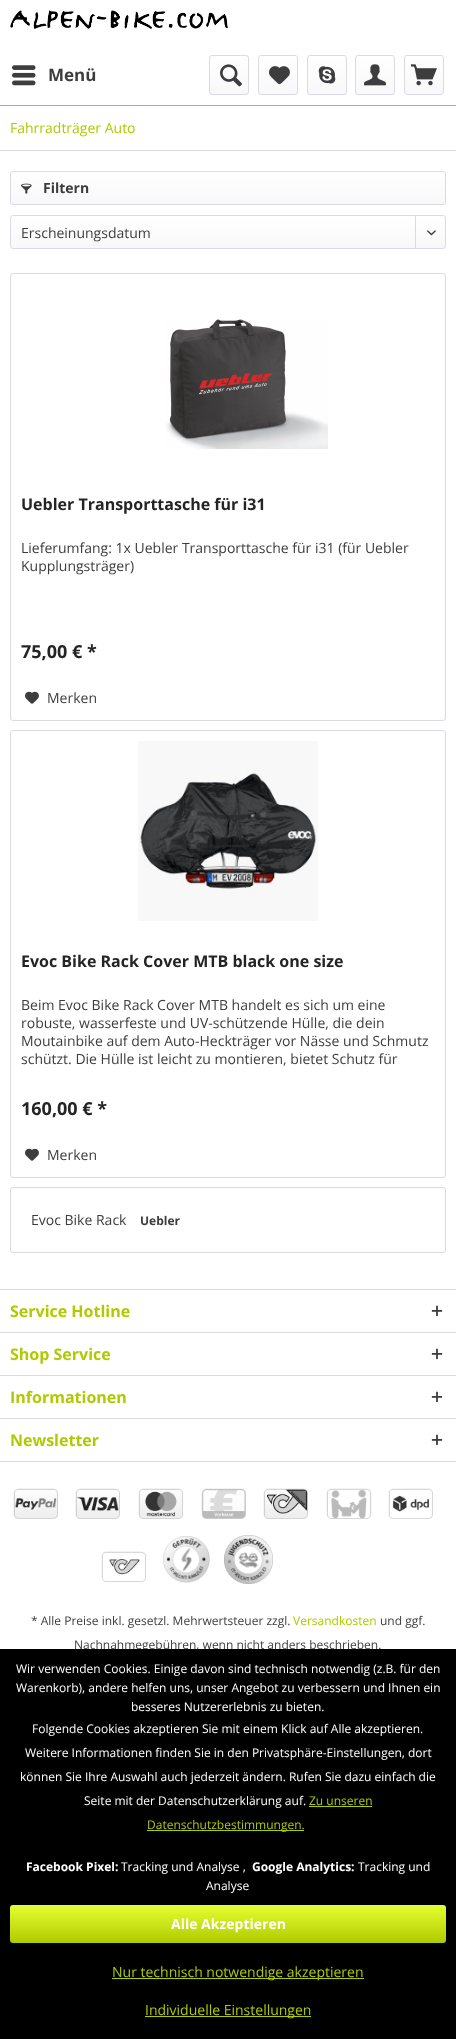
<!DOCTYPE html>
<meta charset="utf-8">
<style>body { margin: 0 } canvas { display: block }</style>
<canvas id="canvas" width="456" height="2039"></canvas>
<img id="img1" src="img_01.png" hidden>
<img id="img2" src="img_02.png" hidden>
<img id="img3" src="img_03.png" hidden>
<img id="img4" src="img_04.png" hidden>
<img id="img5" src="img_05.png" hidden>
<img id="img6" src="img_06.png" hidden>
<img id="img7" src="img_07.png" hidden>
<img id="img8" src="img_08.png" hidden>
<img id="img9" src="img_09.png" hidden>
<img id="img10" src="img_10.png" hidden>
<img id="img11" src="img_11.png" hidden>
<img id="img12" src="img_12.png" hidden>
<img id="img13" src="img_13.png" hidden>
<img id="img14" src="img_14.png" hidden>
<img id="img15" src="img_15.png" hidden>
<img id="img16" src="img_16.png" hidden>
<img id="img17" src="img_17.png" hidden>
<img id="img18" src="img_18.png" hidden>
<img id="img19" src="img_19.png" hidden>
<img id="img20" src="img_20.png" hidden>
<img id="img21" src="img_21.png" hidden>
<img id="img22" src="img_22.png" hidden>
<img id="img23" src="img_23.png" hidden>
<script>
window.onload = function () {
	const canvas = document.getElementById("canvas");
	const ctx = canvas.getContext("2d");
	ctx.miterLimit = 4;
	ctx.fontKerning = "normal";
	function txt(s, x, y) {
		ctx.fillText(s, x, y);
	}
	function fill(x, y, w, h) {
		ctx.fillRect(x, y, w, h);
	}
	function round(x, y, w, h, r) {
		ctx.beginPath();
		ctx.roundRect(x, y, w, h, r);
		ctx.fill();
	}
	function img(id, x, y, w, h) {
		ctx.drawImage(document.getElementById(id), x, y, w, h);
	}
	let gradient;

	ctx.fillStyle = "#FFFFFF";
	fill(0, 0, 456, 2039);
	ctx.fillStyle = "#B0CA00";
	fill(0, 105, 456, 1);
	img("img1", 10, 10, 218, 19);
	img("img2", 12, 65, 24, 21);
	gradient = ctx.createLinearGradient(229, 56, 229, 94);
	gradient.addColorStop(0, "#FFFFFF");
	gradient.addColorStop(1, "#F8F8FA");
	ctx.fillStyle = gradient;
	round(210, 56, 38, 38, 2);
	ctx.beginPath();
	ctx.roundRect(209.5, 55.5, 39, 39, 2.5);
	ctx.strokeStyle = "#DADAE5";
	ctx.stroke();
	img("img3", 220, 64, 22, 23);
	gradient = ctx.createLinearGradient(278, 56, 278, 94);
	gradient.addColorStop(0, "#FFFFFF");
	gradient.addColorStop(1, "#F8F8FA");
	ctx.fillStyle = gradient;
	round(259, 56, 38, 38, 2);
	ctx.beginPath();
	ctx.roundRect(258.5, 55.5, 39, 39, 2.5);
	ctx.stroke();
	img("img4", 269, 66, 21, 19);
	gradient = ctx.createLinearGradient(327, 56, 327, 94);
	gradient.addColorStop(0, "#FFFFFF");
	gradient.addColorStop(1, "#F8F8FA");
	ctx.fillStyle = gradient;
	round(308, 56, 38, 38, 2);
	ctx.beginPath();
	ctx.roundRect(307.5, 55.5, 39, 39, 2.5);
	ctx.stroke();
	img("img5", 318, 66, 18, 18);
	gradient = ctx.createLinearGradient(375, 56, 375, 94);
	gradient.addColorStop(0, "#FFFFFF");
	gradient.addColorStop(1, "#F8F8FA");
	ctx.fillStyle = gradient;
	round(356, 56, 38, 38, 2);
	ctx.beginPath();
	ctx.roundRect(355.5, 55.5, 39, 39, 2.5);
	ctx.stroke();
	img("img6", 364, 64, 22, 22);
	gradient = ctx.createLinearGradient(424, 56, 424, 94);
	gradient.addColorStop(0, "#FFFFFF");
	gradient.addColorStop(1, "#F8F8FA");
	ctx.fillStyle = gradient;
	round(405, 56, 38, 38, 2);
	ctx.beginPath();
	ctx.roundRect(404.5, 55.5, 39, 39, 2.5);
	ctx.stroke();
	img("img7", 411, 64, 26, 22);
	ctx.fillStyle = "#DADAE5";
	fill(0, 150, 456, 1);
	gradient = ctx.createLinearGradient(228, 172, 228, 204);
	gradient.addColorStop(0, "#FFFFFF");
	gradient.addColorStop(1, "#F8F8FA");
	ctx.fillStyle = gradient;
	round(11, 172, 434, 32, 2);
	ctx.beginPath();
	ctx.roundRect(10.5, 171.5, 435, 33, 2.5);
	ctx.stroke();
	img("img8", 21, 183, 11, 11);
	gradient = ctx.createLinearGradient(228, 216, 228, 248);
	gradient.addColorStop(0, "#FFFFFF");
	gradient.addColorStop(1, "#F8F8FA");
	ctx.fillStyle = gradient;
	round(11, 216, 434, 32, 2);
	ctx.beginPath();
	ctx.roundRect(10.5, 215.5, 435, 33, 2.5);
	ctx.stroke();
	ctx.fillStyle = "#DADAE5";
	fill(415, 216, 1, 33);
	img("img9", 427, 230, 9, 6);
	ctx.beginPath();
	ctx.roundRect(10.5, 273.5, 435, 447, 2.5);
	ctx.stroke();
	img("img10", 166, 319, 162, 130);
	img("img11", 25, 691, 14, 13);
	ctx.beginPath();
	ctx.roundRect(10.5, 730.5, 435, 447, 2.5);
	ctx.stroke();
	img("img12", 138, 741, 180, 180);
	img("img11", 25, 1148, 14, 13);
	ctx.beginPath();
	ctx.roundRect(10.5, 1187.5, 435, 65, 2.5);
	ctx.stroke();
	fill(0, 1289, 456, 1);
	img("img13", 431, 1305, 12, 12);
	fill(0, 1332, 456, 1);
	img("img13", 431, 1348, 12, 12);
	fill(0, 1375, 456, 1);
	img("img13", 431, 1391, 12, 12);
	fill(0, 1418, 456, 1);
	fill(0, 1461, 456, 1);
	img("img13", 431, 1434, 12, 12);
	img("img14", 13, 1488, 45, 31);
	img("img15", 75, 1488, 45, 31);
	img("img16", 138, 1488, 45, 31);
	img("img17", 201, 1488, 45, 31);
	img("img18", 263, 1488, 45, 31);
	img("img19", 326, 1488, 46, 31);
	img("img20", 388, 1488, 45, 31);
	img("img21", 101, 1551, 45, 31);
	img("img22", 163, 1536, 47, 47);
	img("img23", 224, 1535, 49, 49);
	ctx.font = "bold 17px Open Sans";
	ctx.fillStyle = "#3D3D3D";
	txt("Menü", 48, 81);
	ctx.font = "14px Open Sans";
	ctx.fillStyle = "#B0CA00";
	txt("Fahrradträger Auto", 10, 133);
	ctx.font = "bold 14px Open Sans";
	ctx.fillStyle = "#3D3D3D";
	txt("Filtern", 43, 193);
	ctx.font = "14px Open Sans";
	txt("Erscheinungsdatum", 21, 238);
	ctx.font = "bold 16px Open Sans";
	ctx.fillStyle = "#242424";
	txt("Uebler Transporttasche für i31", 21, 510);
	ctx.font = "14px Open Sans";
	ctx.fillStyle = "#3D3D3D";
	txt("Lieferumfang: 1x Uebler Transporttasche für i31 (für Uebler", 21, 553);
	txt("Kupplungsträger)", 21, 571);
	ctx.font = "bold 18px Open Sans";
	ctx.fillStyle = "#242424";
	txt("75,00 € *", 21, 658);
	ctx.font = "14px Open Sans";
	ctx.fillStyle = "#3D3D3D";
	txt("Merken", 47, 703);
	ctx.font = "bold 16px Open Sans";
	ctx.fillStyle = "#242424";
	txt("Evoc Bike Rack Cover MTB black one size", 21, 967);
	ctx.font = "14px Open Sans";
	ctx.fillStyle = "#3D3D3D";
	txt("Beim Evoc Bike Rack Cover MTB handelt es sich um eine", 21, 1010);
	txt("robuste, wasserfeste und UV-schützende Hülle, die dein", 21, 1028);
	txt("Moutainbike auf dem Auto-Heckträger vor Nässe und Schmutz", 21, 1046);
	txt("schützt. Die Hülle ist leicht zu montieren, bietet Schutz für", 21, 1064);
	ctx.font = "bold 18px Open Sans";
	ctx.fillStyle = "#242424";
	txt("160,00 € *", 21, 1115);
	ctx.font = "14px Open Sans";
	ctx.fillStyle = "#3D3D3D";
	txt("Merken", 47, 1160);
	txt("Evoc Bike Rack", 31, 1225);
	ctx.font = "bold 12px Open Sans";
	txt("Uebler", 140, 1225);
	ctx.font = "bold 16px Open Sans";
	ctx.fillStyle = "#B0CA00";
	txt("Service Hotline", 10, 1317);
	txt("Shop Service", 10, 1360);
	txt("Informationen", 10, 1403);
	txt("Newsletter", 10, 1446);
	ctx.font = "12px Open Sans";
	ctx.fillStyle = "#3D3D3D";
	txt("* Alle Preise inkl. gesetzl. Mehrwertsteuer zzgl.", 31, 1625);
	ctx.fillStyle = "#B0CA00";
	txt("Versandkosten", 293, 1625);
	ctx.fillStyle = "#3D3D3D";
	txt("und ggf.", 380, 1625);
	txt("Nachnahmegebühren, wenn nicht anders beschrieben.", 74, 1649);
	ctx.fillStyle = "#000000";
	fill(0, 1649, 456, 390);
	ctx.fillStyle = "#FFFFFF";
	txt("Wir verwenden Cookies. Einige davon sind technisch notwendig (z.B. für den", 16, 1673);
	txt("Warenkorb), andere helfen uns, unser Angebot zu verbessern und Ihnen ein", 16, 1692);
	txt("besseres Nutzererlebnis zu bieten.", 131, 1711);
	txt("Folgende Cookies akzeptieren Sie mit einem Klick auf Alle akzeptieren.", 32, 1733);
	txt("Weitere Informationen finden Sie in den Privatsphäre-Einstellungen, dort", 25, 1757);
	txt("können Sie Ihre Auswahl auch jederzeit ändern. Rufen Sie dazu einfach die", 20, 1781);
	txt("Seite mit der Datenschutzerklärung auf.", 84, 1805);
	ctx.fillStyle = "#B0CA00";
	txt("Zu unseren", 309, 1805);
	fill(309, 1806, 63, 1);
	fill(147, 1830, 157, 1);
	txt("Datenschutzbestimmungen.", 147, 1829);
	ctx.font = "bold 12px Open Sans";
	ctx.fillStyle = "#FFFFFF";
	txt("Facebook Pixel:", 26, 1871);
	ctx.font = "12px Open Sans";
	txt("Tracking und Analyse ,", 121, 1871);
	ctx.font = "bold 12px Open Sans";
	txt("Google Analytics:", 252, 1871);
	ctx.font = "12px Open Sans";
	txt("Tracking und", 358, 1871);
	txt("Analyse", 206, 1890);
	gradient = ctx.createLinearGradient(228, 1905, 228, 1943);
	gradient.addColorStop(0, "#E4FF31");
	gradient.addColorStop(1, "#B0CA00");
	ctx.fillStyle = gradient;
	round(10, 1905, 436, 38, 3);
	ctx.font = "bold 14px Open Sans";
	ctx.fillStyle = "#FFFFFF";
	txt("Alle Akzeptieren", 171, 1929);
	ctx.fillStyle = "#B0CA00";
	fill(112, 1978, 252, 1);
	ctx.font = "14px Open Sans";
	txt("Nur technisch notwendige akzeptieren", 112, 1977);
	fill(145, 2016, 166, 1);
	txt("Individuelle Einstellungen", 145, 2015);
};
</script>
